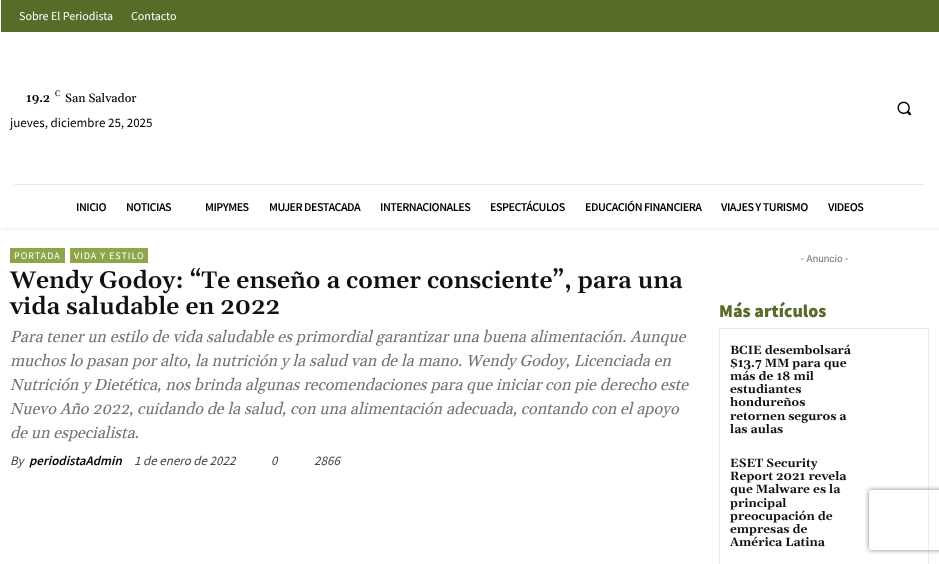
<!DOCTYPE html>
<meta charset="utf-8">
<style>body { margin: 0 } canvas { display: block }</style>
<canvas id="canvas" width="939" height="564"></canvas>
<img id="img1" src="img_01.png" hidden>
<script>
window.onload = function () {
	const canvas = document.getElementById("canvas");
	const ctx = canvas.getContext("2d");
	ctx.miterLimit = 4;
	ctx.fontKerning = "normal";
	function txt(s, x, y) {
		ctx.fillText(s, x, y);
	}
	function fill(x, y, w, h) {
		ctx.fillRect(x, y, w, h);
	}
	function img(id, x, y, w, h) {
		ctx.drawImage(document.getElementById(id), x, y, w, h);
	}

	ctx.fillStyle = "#FFFFFF";
	fill(0, 0, 939, 564);
	ctx.fillStyle = "#586B29";
	fill(1, 0, 938, 32);
	img("img1", 897, 101, 15, 15);
	ctx.fillStyle = "#EAEAEA";
	fill(14, 184, 911, 1);
	ctx.save();
	ctx.beginPath();
	ctx.rect(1, 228, 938, 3);
	ctx.clip();
	ctx.fillStyle = "rgba(0, 0, 0, 0.06)";
	ctx.filter = "blur(2px)";
	ctx.beginPath();
	ctx.rect(1, 176, 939, 54);
	ctx.fill();
	ctx.filter = "none";
	ctx.restore();
	ctx.fillStyle = "#8FA549";
	fill(10, 248, 55, 15);
	fill(70, 248, 78, 15);
	ctx.strokeStyle = "#EAEAEA";
	ctx.strokeRect(719.5, 328.5, 209, 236);
	ctx.save();
	ctx.beginPath();
	ctx.moveTo(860, 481);
	ctx.lineTo(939, 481);
	ctx.lineTo(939, 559);
	ctx.lineTo(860, 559);
	ctx.closePath();
	ctx.moveTo(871, 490);
	ctx.lineTo(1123, 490);
	ctx.bezierCurveTo(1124, 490, 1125, 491, 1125, 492);
	ctx.lineTo(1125, 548);
	ctx.bezierCurveTo(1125, 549, 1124, 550, 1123, 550);
	ctx.lineTo(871, 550);
	ctx.bezierCurveTo(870, 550, 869, 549, 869, 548);
	ctx.lineTo(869, 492);
	ctx.bezierCurveTo(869, 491, 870, 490, 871, 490);
	ctx.closePath();
	ctx.clip("evenodd");
	ctx.fillStyle = "#808080";
	ctx.filter = "blur(2.5px)";
	ctx.beginPath();
	ctx.roundRect(869, 490, 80, 60, 2);
	ctx.fill();
	ctx.filter = "none";
	ctx.restore();
	ctx.font = "12px Source Sans Pro";
	ctx.fillStyle = "#FFFFFF";
	txt("Sobre El Periodista", 19, 20);
	txt("Contacto", 131, 20);
	ctx.font = "600 12px Gelasio";
	ctx.fillStyle = "#000000";
	txt("19.2", 26, 102);
	ctx.font = "8px Gelasio";
	txt("C", 55, 96);
	ctx.font = "500 12px Gelasio";
	txt("San Salvador", 65, 102);
	ctx.font = "13px Source Sans Pro";
	txt("jueves, diciembre 25, 2025", 10, 127);
	ctx.letterSpacing = "-0.5px";
	ctx.font = "600 12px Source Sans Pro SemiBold";
	txt("INICIO", 76, 211);
	txt("NOTICIAS", 126, 211);
	txt("MIPYMES", 205, 211);
	txt("MUJER DESTACADA", 269, 211);
	txt("INTERNACIONALES", 380, 211);
	txt("ESPECTÁCULOS", 490, 211);
	txt("EDUCACIÓN FINANCIERA", 585, 211);
	txt("VIAJES Y TURISMO", 721, 211);
	txt("VIDEOS", 828, 211);
	ctx.letterSpacing = "1px";
	ctx.font = "10px Source Sans Pro";
	ctx.fillStyle = "#FFFFFF";
	txt("PORTADA", 14, 259);
	txt("VIDA Y ESTILO", 74, 259);
	ctx.letterSpacing = "0px";
	ctx.font = "600 24px Gelasio";
	ctx.fillStyle = "#111111";
	txt("Wendy Godoy: “Te enseño a comer consciente”, para una", 10, 288);
	txt("vida saludable en 2022", 10, 314);
	ctx.font = "italic 16px Gelasio";
	ctx.fillStyle = "#747474";
	txt("Para tener un estilo de vida saludable es primordial garantizar una buena alimentación. Aunque", 10, 342);
	txt("muchos lo pasan por alto, la nutrición y la salud van de la mano. Wendy Godoy, Licenciada en", 10, 366);
	txt("Nutrición y Dietética, nos brinda algunas recomendaciones para que iniciar con pie derecho este", 10, 390);
	txt("Nuevo Año 2022, cuidando de la salud, con una alimentación adecuada, contando con el apoyo", 10, 414);
	txt("de un especialista.", 10, 438);
	ctx.font = "italic 13px Source Sans Pro";
	ctx.fillStyle = "#444444";
	txt("By", 10, 465);
	ctx.font = "italic 600 13px Source Sans Pro SemiBold";
	ctx.fillStyle = "#000000";
	txt("periodistaAdmin", 29, 465);
	ctx.font = "italic 13px Source Sans Pro";
	ctx.fillStyle = "#444444";
	txt("1 de enero de 2022", 134, 465);
	txt("0", 271, 465);
	txt("2866", 314, 465);
	ctx.font = "10px Roboto";
	ctx.fillStyle = "#747474";
	txt("- Anuncio -", 801, 262);
	ctx.font = "900 18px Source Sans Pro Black";
	ctx.fillStyle = "#586B29";
	txt("Más artículos", 719, 317);
	ctx.font = "bold 12px Gelasio";
	ctx.fillStyle = "#111111";
	txt("BCIE desembolsará", 730, 354);
	txt("$13.7 MM para que", 730, 367);
	txt("más de 18 mil", 730, 380);
	txt("estudiantes", 730, 393);
	txt("hondureños", 730, 406);
	txt("retornen seguros a", 730, 420);
	txt("las aulas", 730, 433);
	txt("ESET Security", 730, 467);
	txt("Report 2021 revela", 730, 480);
	txt("que Malware es la", 730, 493);
	txt("principal", 730, 507);
	txt("preocupación de", 730, 520);
	txt("empresas de", 730, 533);
	txt("América Latina", 730, 546);
};
</script>
